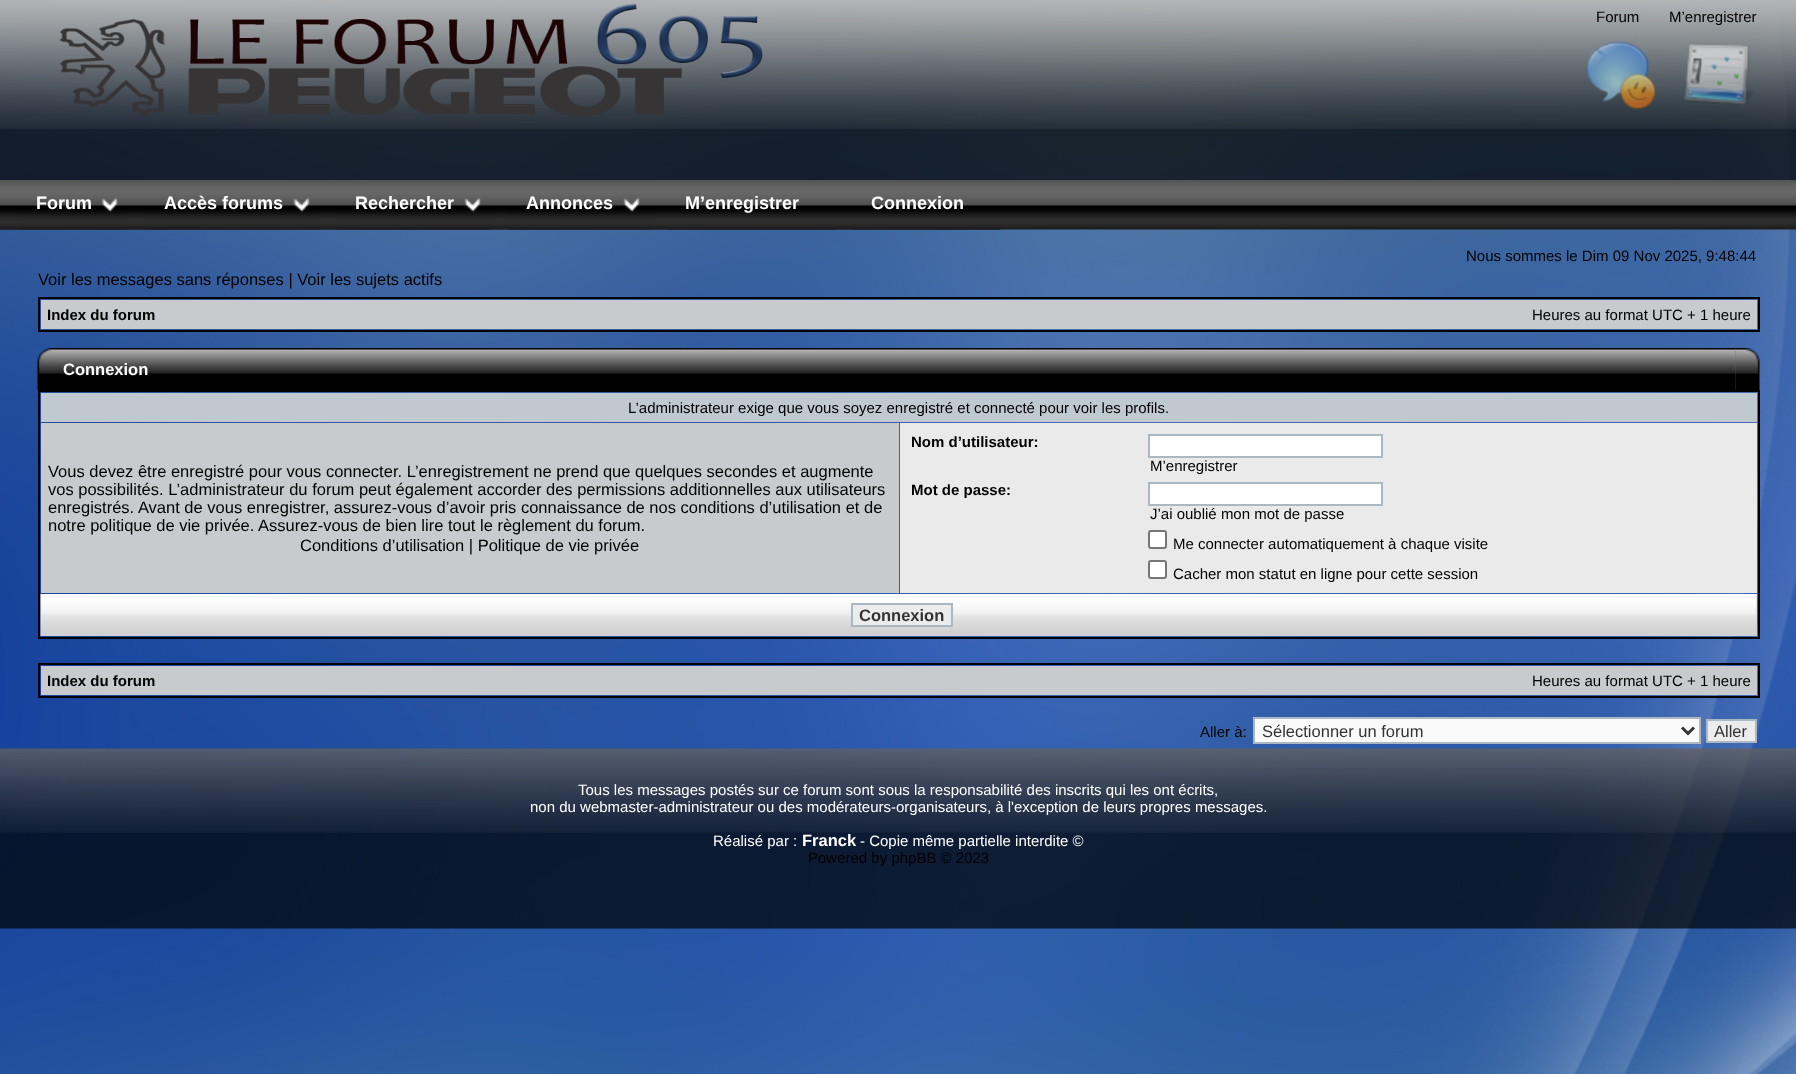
<!DOCTYPE html>
<meta charset="utf-8">
<style>body { margin: 0 } canvas { display: block }</style>
<canvas id="canvas" width="1796" height="1074"></canvas>
<img id="img1" src="img_01.png" hidden>
<img id="img2" src="img_02.png" hidden>
<img id="img3" src="img_03.png" hidden>
<img id="img4" src="img_04.png" hidden>
<img id="img5" src="img_05.png" hidden>
<img id="img6" src="img_06.png" hidden>
<img id="img7" src="img_07.png" hidden>
<img id="img8" src="img_08.png" hidden>
<img id="img9" src="img_09.png" hidden>
<img id="img10" src="img_10.png" hidden>
<img id="img11" src="img_11.png" hidden>
<img id="img12" src="img_12.png" hidden>
<img id="img13" src="img_13.png" hidden>
<img id="img14" src="img_14.png" hidden>
<img id="img15" src="img_15.png" hidden>
<img id="img16" src="img_16.png" hidden>
<img id="img17" src="img_17.png" hidden>
<img id="img18" src="img_18.png" hidden>
<img id="img19" src="img_19.png" hidden>
<img id="img20" src="img_20.png" hidden>
<img id="img21" src="img_21.png" hidden>
<img id="img22" src="img_22.png" hidden>
<img id="img23" src="img_23.png" hidden>
<script>
window.onload = function () {
	const canvas = document.getElementById("canvas");
	const ctx = canvas.getContext("2d");
	ctx.miterLimit = 4;
	ctx.fontKerning = "normal";
	function txt(s, x, y) {
		ctx.fillText(s, x, y);
	}
	function fill(x, y, w, h) {
		ctx.fillRect(x, y, w, h);
	}
	function img(id, x, y, w, h) {
		ctx.drawImage(document.getElementById(id), x, y, w, h);
	}

	ctx.fillStyle = "#FFFFFF";
	fill(0, 0, 1796, 1074);
	img("img1", 0, 0, 1796, 1074);
	img("img2", 0, 0, 1796, 180);
	img("img3", 59, 3, 704, 114);
	img("img4", 1585, 41, 71, 69);
	img("img5", 1684, 42, 69, 63);
	img("img6", 0, 180, 1796, 50);
	img("img7", 0, 229, 128, 1);
	img("img8", 18, 197, 110, 33);
	img("img9", 127, 229, 193, 1);
	img("img10", 145, 197, 175, 33);
	img("img11", 319, 229, 172, 1);
	img("img12", 337, 197, 154, 33);
	img("img13", 490, 229, 160, 1);
	img("img14", 508, 197, 142, 33);
	img("img15", 649, 229, 187, 1);
	img("img16", 667, 229, 169, 1);
	img("img17", 835, 229, 166, 1);
	img("img18", 853, 229, 148, 1);
	ctx.strokeStyle = "#000000";
	ctx.lineWidth = 2;
	ctx.strokeRect(39, 298, 1720, 33);
	ctx.fillStyle = "#C8CACE";
	fill(41, 300, 1716, 29);
	img("img19", 37, 348, 26, 42);
	img("img20", 63, 348, 1673, 42);
	img("img21", 1735, 348, 25, 42);
	ctx.strokeRect(39, 391, 1720, 247);
	ctx.fillStyle = "#C0C8D0";
	fill(41, 393, 1716, 29);
	ctx.fillStyle = "#C8CACE";
	fill(41, 423, 858, 170);
	ctx.fillStyle = "#EAEAEA";
	fill(900, 423, 857, 170);
	ctx.fillStyle = "#FFFFFF";
	ctx.beginPath();
	ctx.rect(1149, 435, 233, 22);
	ctx.fill();
	ctx.strokeStyle = "#A9B8C2";
	ctx.stroke();
	ctx.beginPath();
	ctx.rect(1149, 483, 233, 22);
	ctx.fill();
	ctx.stroke();
	ctx.beginPath();
	ctx.roundRect(1149, 531, 17, 17, 2);
	ctx.fill();
	ctx.strokeStyle = "#767676";
	ctx.stroke();
	ctx.beginPath();
	ctx.roundRect(1149, 561, 17, 17, 2);
	ctx.fill();
	ctx.stroke();
	ctx.fillStyle = "#C7D0D7";
	fill(1756, 594, 1, 42);
	img("img22", 40, 594, 1717, 42);
	ctx.fillStyle = "#ECECEC";
	ctx.beginPath();
	ctx.rect(852, 604, 100, 22);
	ctx.fill();
	ctx.strokeStyle = "#A9B8C2";
	ctx.stroke();
	ctx.strokeStyle = "#000000";
	ctx.strokeRect(39, 664, 1720, 33);
	ctx.fillStyle = "#C8CACE";
	fill(41, 666, 1716, 29);
	ctx.fillStyle = "#FAFAFA";
	ctx.beginPath();
	ctx.rect(1254, 718, 446, 25);
	ctx.fill();
	ctx.strokeStyle = "#A9B8C2";
	ctx.stroke();
	ctx.beginPath();
	ctx.moveTo(1682, 727.5);
	ctx.lineTo(1688, 733.5);
	ctx.lineTo(1694, 727.5);
	ctx.strokeStyle = "#333333";
	ctx.lineWidth = 3;
	ctx.stroke();
	ctx.fillStyle = "#ECECEC";
	ctx.beginPath();
	ctx.rect(1707, 720, 49, 22);
	ctx.fill();
	ctx.strokeStyle = "#A9B8C2";
	ctx.lineWidth = 2;
	ctx.stroke();
	img("img23", 0, 748, 1796, 181);
	ctx.font = "15px Liberation Sans";
	ctx.fillStyle = "#000000";
	txt("Forum", 1596, 22);
	txt("M’enregistrer", 1669, 22);
	ctx.font = "bold 18px Liberation Sans";
	ctx.fillStyle = "#FFFFFF";
	txt("Forum", 36, 209);
	txt("Accès forums", 164, 209);
	txt("Rechercher", 355, 209);
	txt("Annonces", 526, 209);
	txt("M’enregistrer", 685, 209);
	txt("Connexion", 871, 209);
	ctx.font = "15px Liberation Sans";
	ctx.fillStyle = "#000000";
	txt("Nous sommes le Dim 09 Nov 2025, 9:48:44", 1466, 261);
	ctx.font = "16.5px Liberation Sans";
	txt("Voir les messages sans réponses | Voir les sujets actifs", 38, 285);
	ctx.font = "bold 15px Liberation Sans";
	txt("Index du forum", 47, 320);
	ctx.font = "15px Liberation Sans";
	txt("Heures au format UTC + 1 heure", 1532, 320);
	ctx.font = "bold 16.5px Liberation Sans";
	ctx.fillStyle = "#FFFFFF";
	txt("Connexion", 63, 375);
	ctx.font = "15px Liberation Sans";
	ctx.fillStyle = "#000000";
	txt("L’administrateur exige que vous soyez enregistré et connecté pour voir les profils.", 628, 413);
	ctx.font = "16.5px Liberation Sans";
	txt("Vous devez être enregistré pour vous connecter. L’enregistrement ne prend que quelques secondes et augmente", 48, 477);
	txt("vos possibilités. L’administrateur du forum peut également accorder des permissions additionnelles aux utilisateurs", 48, 495);
	txt("enregistrés. Avant de vous enregistrer, assurez-vous d’avoir pris connaissance de nos conditions d’utilisation et de", 48, 513);
	txt("notre politique de vie privée. Assurez-vous de bien lire tout le règlement du forum.", 48, 531);
	txt("Conditions d’utilisation | Politique de vie privée", 300, 551);
	ctx.font = "bold 15px Liberation Sans";
	txt("Nom d’utilisateur:", 911, 447);
	ctx.font = "15px Liberation Sans";
	txt("M’enregistrer", 1150, 471);
	ctx.font = "bold 15px Liberation Sans";
	txt("Mot de passe:", 911, 495);
	ctx.font = "15px Liberation Sans";
	txt("J’ai oublié mon mot de passe", 1150, 519);
	txt("Me connecter automatiquement à chaque visite", 1173, 549);
	txt("Cacher mon statut en ligne pour cette session", 1173, 579);
	ctx.font = "bold 16.5px Liberation Sans";
	ctx.fillStyle = "#333333";
	txt("Connexion", 859, 621);
	ctx.font = "bold 15px Liberation Sans";
	ctx.fillStyle = "#000000";
	txt("Index du forum", 47, 686);
	ctx.font = "15px Liberation Sans";
	txt("Heures au format UTC + 1 heure", 1532, 686);
	txt("Aller à:", 1200, 737);
	ctx.font = "16.5px Liberation Sans";
	ctx.fillStyle = "#333333";
	txt("Sélectionner un forum", 1262, 737);
	txt("Aller", 1714, 737);
	ctx.font = "15px Liberation Sans";
	ctx.fillStyle = "#FFFFFF";
	txt("Tous les messages postés sur ce forum sont sous la responsabilité des inscrits qui les ont écrits,", 578, 795);
	txt("non du webmaster-administrateur ou des modérateurs-organisateurs, à l'exception de leurs propres messages.", 530, 812);
	txt("Réalisé par :", 713, 846);
	ctx.font = "bold 16.5px Liberation Sans";
	txt("Franck", 802, 846);
	ctx.font = "15px Liberation Sans";
	txt("- Copie même partielle interdite ©", 860, 846);
	ctx.fillStyle = "#000000";
	txt("Powered by phpBB © 2023", 808, 863);
};
</script>
